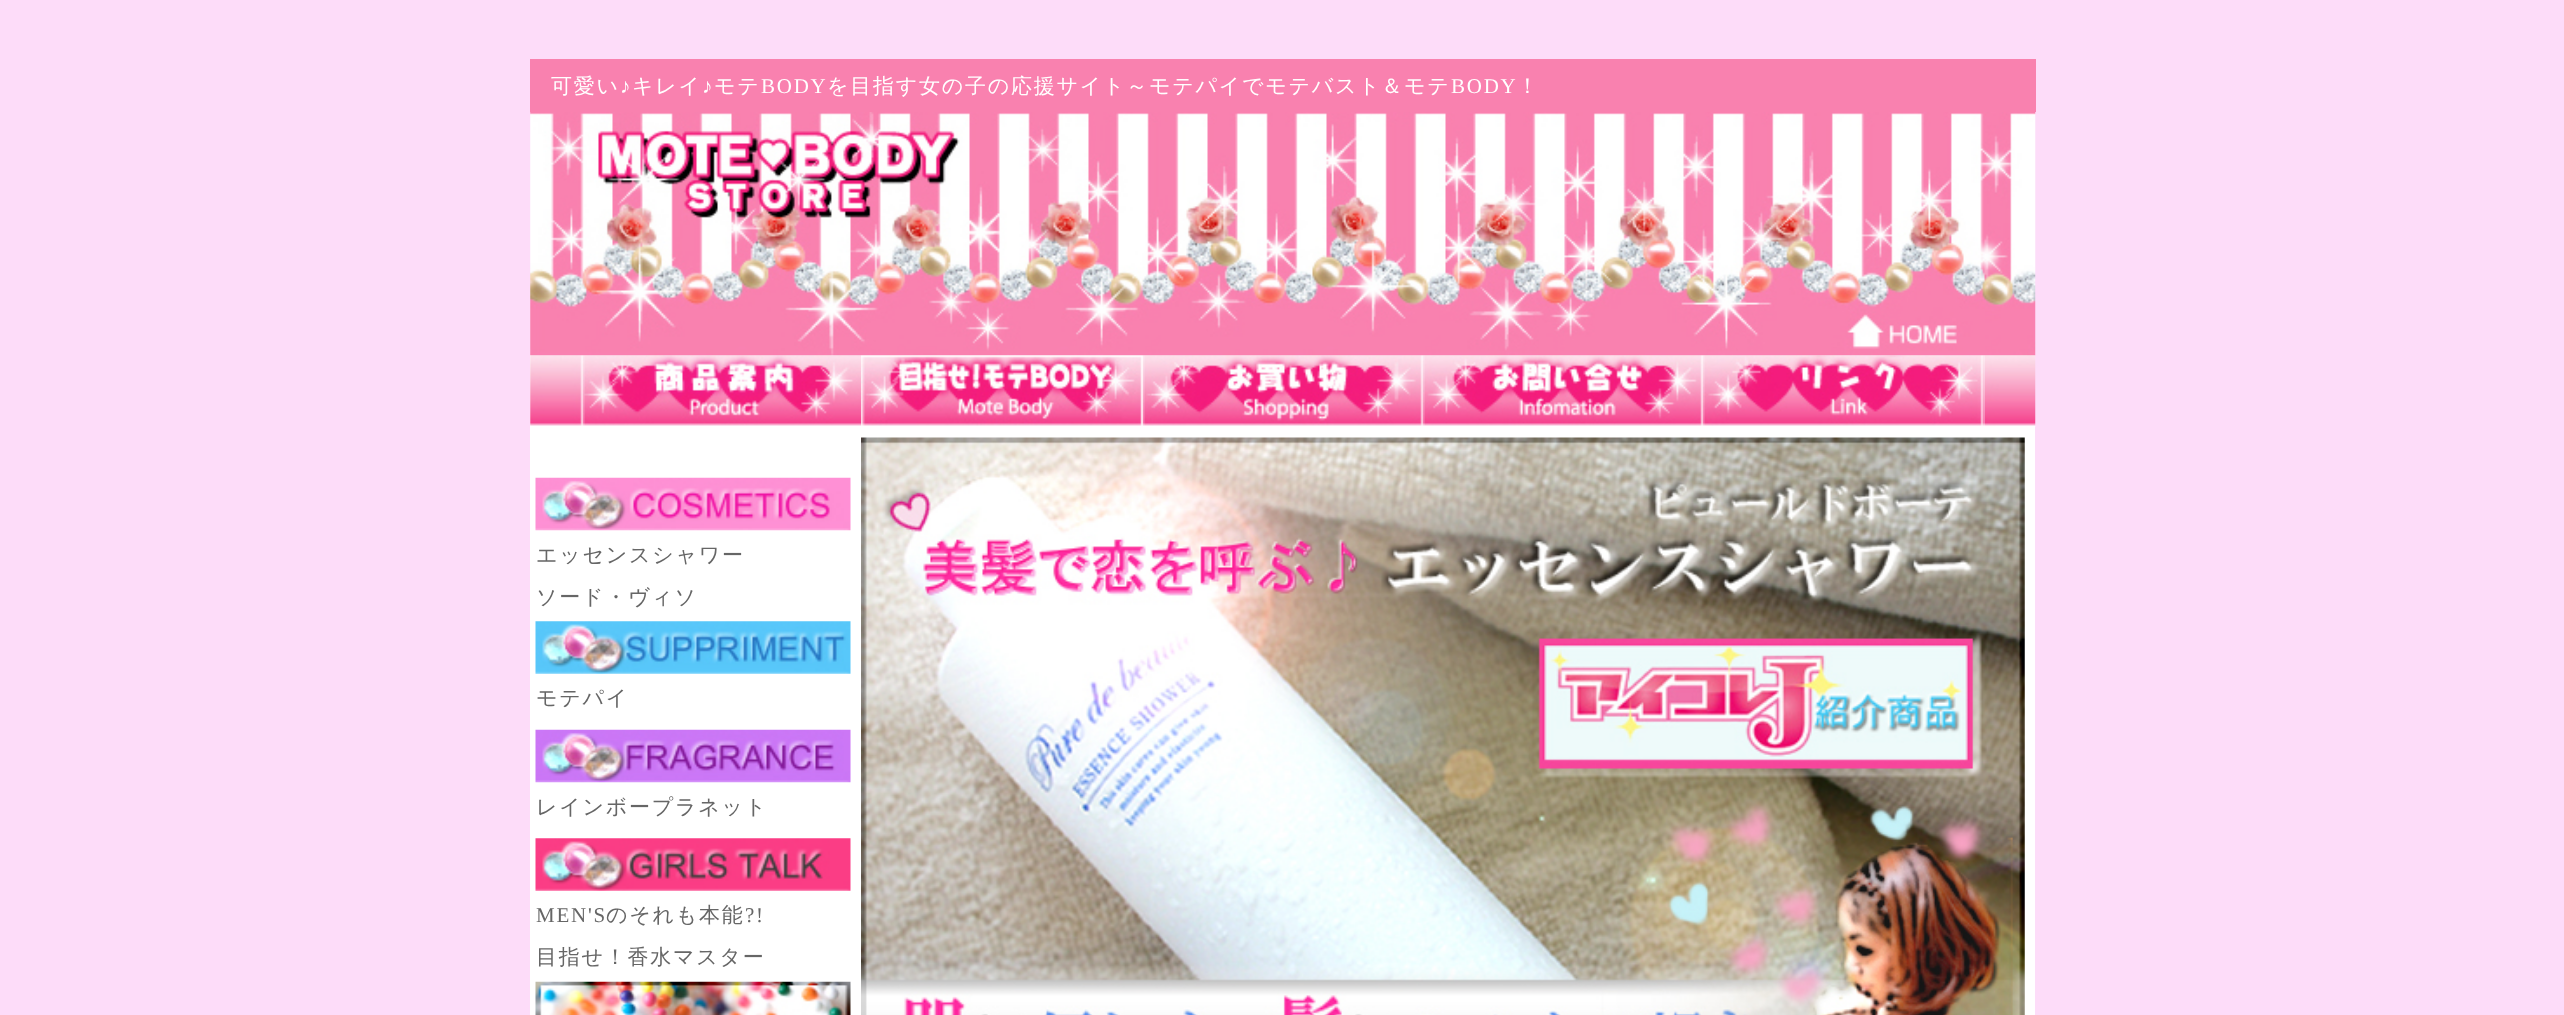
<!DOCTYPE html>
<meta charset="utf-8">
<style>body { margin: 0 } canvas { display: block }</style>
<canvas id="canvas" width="2564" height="1015"></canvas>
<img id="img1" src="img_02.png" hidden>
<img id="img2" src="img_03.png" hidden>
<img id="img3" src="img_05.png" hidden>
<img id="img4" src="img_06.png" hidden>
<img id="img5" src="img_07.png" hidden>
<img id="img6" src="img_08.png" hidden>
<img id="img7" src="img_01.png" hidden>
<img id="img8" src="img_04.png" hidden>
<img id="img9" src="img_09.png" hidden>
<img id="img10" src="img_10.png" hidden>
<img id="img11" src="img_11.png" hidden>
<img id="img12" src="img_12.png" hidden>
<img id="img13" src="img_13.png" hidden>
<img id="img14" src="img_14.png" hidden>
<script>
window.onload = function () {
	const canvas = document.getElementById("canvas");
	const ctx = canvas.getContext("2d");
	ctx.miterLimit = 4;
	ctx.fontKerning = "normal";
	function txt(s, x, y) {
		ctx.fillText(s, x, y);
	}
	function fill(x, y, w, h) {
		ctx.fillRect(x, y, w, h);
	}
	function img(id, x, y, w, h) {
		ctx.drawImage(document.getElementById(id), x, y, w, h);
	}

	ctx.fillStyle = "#FDDCF9";
	fill(0, 0, 2564, 1015);
	ctx.fillStyle = "#F981AF";
	fill(530, 59, 1506, 53);
	ctx.fillStyle = "#FFFFFF";
	fill(530, 355, 1505, 83);
	img("img1", 530, 355, 53, 71);
	img("img2", 582, 355, 279, 71);
	img("img3", 1142, 355, 281, 71);
	img("img4", 1422, 355, 281, 71);
	img("img5", 1702, 355, 283, 71);
	img("img6", 1984, 355, 52, 72);
	img("img7", 530, 112, 1506, 244);
	img("img8", 861, 356, 281, 70);
	fill(530, 438, 331, 577);
	img("img9", 535, 477, 316, 54);
	img("img10", 535, 621, 316, 53);
	img("img11", 535, 729, 316, 54);
	img("img12", 535, 838, 316, 53);
	img("img13", 535, 981, 316, 34);
	fill(2024, 438, 11, 577);
	img("img14", 861, 437, 1164, 578);
	ctx.letterSpacing = "1.75px";
	ctx.font = "500 21px WenQuanYi Zen Hei";
	txt("可愛い", 551, 93);
	ctx.font = "21px Liberation Serif";
	txt("♪", 620, 93);
	ctx.font = "500 21px WenQuanYi Zen Hei";
	txt("キレイ", 632, 93);
	ctx.font = "21px Liberation Serif";
	txt("♪", 702, 93);
	ctx.font = "500 21px WenQuanYi Zen Hei";
	txt("モテ", 714, 93);
	ctx.font = "21px Liberation Serif";
	txt("BODY", 761, 93);
	ctx.font = "500 21px WenQuanYi Zen Hei";
	txt("を目指す女の子の応援サイト～モテパイでモテバスト＆モテ", 827, 93);
	ctx.font = "21px Liberation Serif";
	txt("BODY", 1451, 93);
	ctx.font = "500 21px WenQuanYi Zen Hei";
	txt("！", 1517, 93);
	ctx.fillStyle = "#666666";
	txt("エッセンスシャワー", 536, 562);
	txt("ソード・ヴィソ", 536, 604);
	txt("モテパイ", 536, 705);
	txt("レインボープラネット", 536, 814);
	ctx.font = "21px Liberation Serif";
	txt("MEN'S", 536, 922);
	ctx.font = "500 21px WenQuanYi Zen Hei";
	txt("のそれも本能", 606, 922);
	ctx.font = "21px Liberation Serif";
	txt("?!", 745, 922);
	ctx.font = "500 21px WenQuanYi Zen Hei";
	txt("目指せ！香水マスター", 536, 964);
};
</script>
